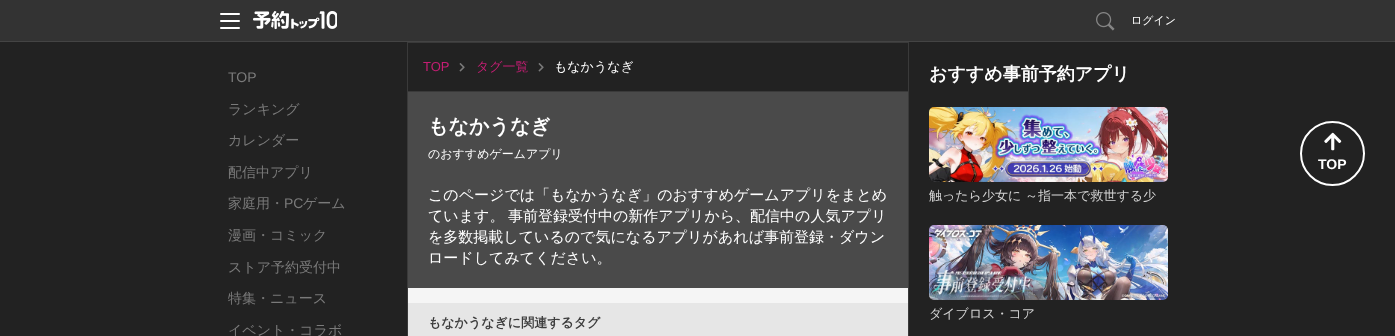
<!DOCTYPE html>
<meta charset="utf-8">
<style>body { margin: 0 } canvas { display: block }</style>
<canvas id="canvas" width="1395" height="336"></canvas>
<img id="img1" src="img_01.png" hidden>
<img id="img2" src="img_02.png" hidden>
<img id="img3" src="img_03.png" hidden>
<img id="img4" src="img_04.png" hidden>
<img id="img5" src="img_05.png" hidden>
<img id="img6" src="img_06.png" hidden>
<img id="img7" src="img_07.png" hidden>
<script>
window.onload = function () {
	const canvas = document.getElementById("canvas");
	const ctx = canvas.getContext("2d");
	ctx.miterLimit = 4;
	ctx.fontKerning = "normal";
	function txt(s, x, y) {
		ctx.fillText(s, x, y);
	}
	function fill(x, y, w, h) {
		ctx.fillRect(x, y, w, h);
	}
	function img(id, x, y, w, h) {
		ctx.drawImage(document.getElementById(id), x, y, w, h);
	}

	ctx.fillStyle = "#222222";
	fill(0, 0, 1395, 336);
	ctx.fillStyle = "#333333";
	fill(0, 0, 1395, 41);
	ctx.fillStyle = "#444444";
	fill(0, 41, 1395, 1);
	img("img1", 220, 13, 20, 16);
	img("img2", 253, 11, 84, 19);
	img("img3", 1096, 12, 19, 19);
	ctx.fillStyle = "#3A3A3A";
	fill(407, 42, 1, 294);
	ctx.fillStyle = "#F5F5F5";
	fill(408, 288, 500, 15);
	ctx.fillStyle = "#3A3A3A";
	fill(408, 42, 500, 1);
	fill(408, 91, 500, 1);
	img("img4", 459, 63, 6, 9);
	img("img4", 538, 63, 6, 9);
	ctx.fillStyle = "#4A4A4A";
	fill(408, 92, 500, 196);
	ctx.fillStyle = "#E6E6E6";
	fill(408, 303, 500, 33);
	ctx.fillStyle = "#3A3A3A";
	fill(908, 42, 1, 294);
	img("img5", 929, 107, 239, 75);
	img("img6", 929, 225, 239, 75);
	ctx.beginPath();
	ctx.arc(1332.5, 153.5, 31.5, 0, Math.PI * 2);
	ctx.strokeStyle = "#FFFFFF";
	ctx.lineWidth = 2;
	ctx.stroke();
	img("img7", 1324, 132, 18, 19);
	ctx.font = "500 11px WenQuanYi Zen Hei";
	ctx.fillStyle = "#FFFFFF";
	txt("ログイン", 1131, 24);
	ctx.font = "14px Liberation Sans";
	ctx.fillStyle = "#7A7A7A";
	txt("TOP", 228, 82);
	ctx.font = "500 14px WenQuanYi Zen Hei";
	txt("ランキング", 228, 114);
	txt("カレンダー", 228, 145);
	txt("配信中アプリ", 228, 177);
	txt("家庭用・", 228, 208);
	ctx.font = "14px Liberation Sans";
	txt("PC", 284, 208);
	ctx.font = "500 14px WenQuanYi Zen Hei";
	txt("ゲーム", 303, 208);
	txt("漫画・コミック", 228, 240);
	txt("ストア予約受付中", 228, 272);
	txt("特集・ニュース", 228, 303);
	txt("イベント・コラボ", 228, 335);
	ctx.font = "13px Liberation Sans";
	ctx.fillStyle = "#C51E74";
	txt("TOP", 423, 71);
	ctx.font = "500 13px WenQuanYi Zen Hei";
	txt("タグ一覧", 476, 71);
	ctx.fillStyle = "#FFFFFF";
	txt("もなかうなぎ", 554, 71);
	ctx.font = "bold 20px WenQuanYi Zen Hei";
	txt("もなかうなぎ", 428, 133);
	ctx.font = "500 12px WenQuanYi Zen Hei";
	txt("のおすすめゲームアプリ", 428, 158);
	ctx.font = "500 15px WenQuanYi Zen Hei";
	txt("このページでは「もなかうなぎ」のおすすめゲームアプリをまとめ", 428, 200);
	txt("ています。", 428, 221);
	txt("事前登録受付中の新作アプリから、配信中の人気アプリ", 508, 221);
	txt("を多数掲載しているので気になるアプリがあれば事前登録・ダウン", 428, 242);
	txt("ロードしてみてください。", 428, 263);
	ctx.font = "bold 13px WenQuanYi Zen Hei";
	ctx.fillStyle = "#3C3C3C";
	txt("もなかうなぎに関連するタグ", 428, 327);
	ctx.font = "bold 18px WenQuanYi Zen Hei";
	ctx.fillStyle = "#FFFFFF";
	txt("おすすめ事前予約アプリ", 929, 80);
	ctx.font = "500 13px WenQuanYi Zen Hei";
	ctx.fillStyle = "#D3D3D3";
	txt("触ったら少女に ～指一本で救世する少", 929, 200);
	txt("ダイブロス・コア", 929, 318);
	ctx.font = "bold 14px Liberation Sans";
	ctx.fillStyle = "#FFFFFF";
	txt("TOP", 1318, 169);
};
</script>
